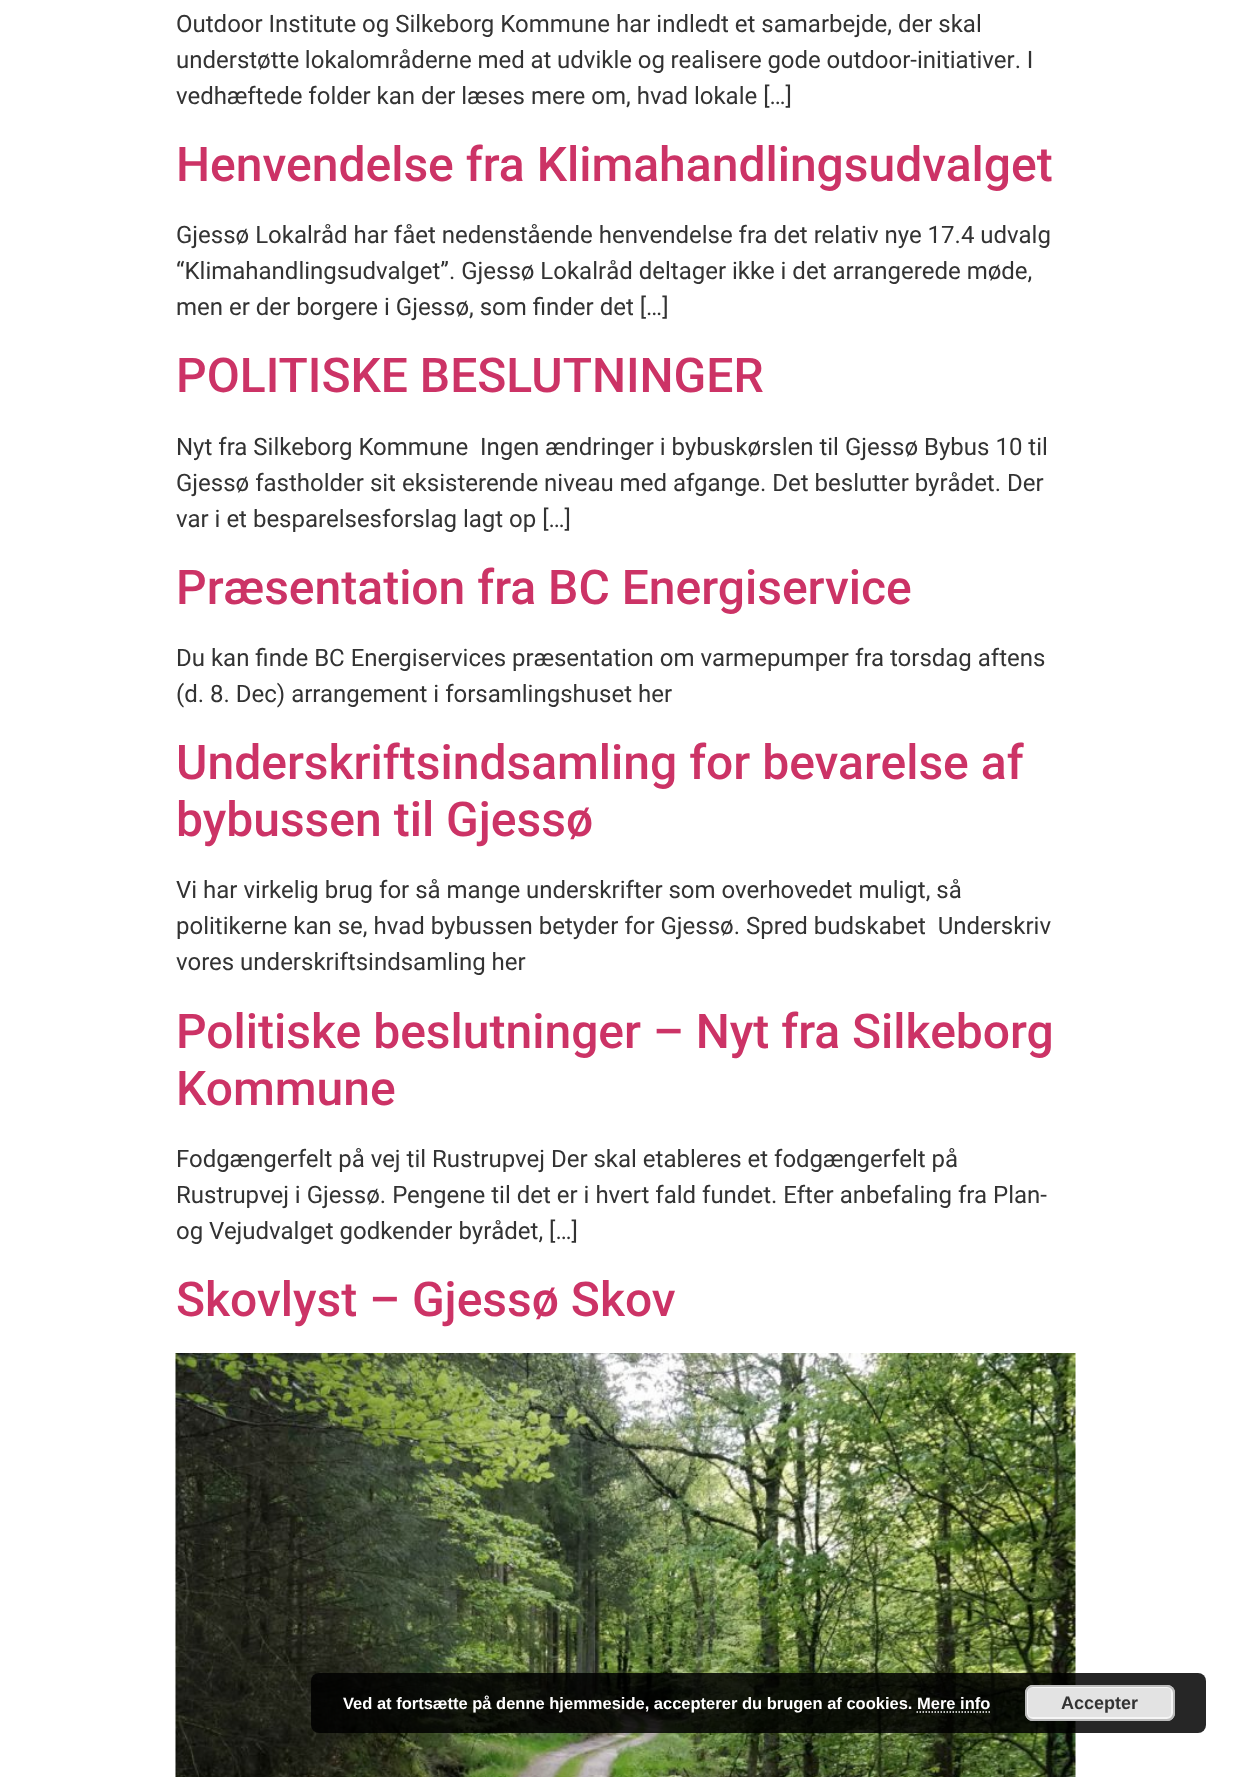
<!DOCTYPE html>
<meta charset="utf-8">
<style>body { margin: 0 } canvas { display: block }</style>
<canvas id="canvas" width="1251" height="1777"></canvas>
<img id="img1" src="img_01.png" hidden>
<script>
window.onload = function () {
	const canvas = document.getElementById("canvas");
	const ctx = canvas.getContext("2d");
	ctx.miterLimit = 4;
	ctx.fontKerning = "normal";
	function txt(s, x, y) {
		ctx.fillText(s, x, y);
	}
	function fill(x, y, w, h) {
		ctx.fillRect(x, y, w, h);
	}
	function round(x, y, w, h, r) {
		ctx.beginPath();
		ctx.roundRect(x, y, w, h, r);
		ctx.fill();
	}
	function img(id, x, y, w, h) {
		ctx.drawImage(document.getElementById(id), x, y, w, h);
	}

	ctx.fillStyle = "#FFFFFF";
	fill(0, 0, 1251, 1777);
	img("img1", 175, 1353, 901, 424);
	ctx.fillStyle = "rgba(0, 0, 0, 0.85)";
	round(311, 1673, 895, 60, 8);
	ctx.fillStyle = "#E3E3E3";
	round(1025, 1685, 150, 36, 8);
	ctx.beginPath();
	ctx.roundRect(1027, 1687, 145, 31, 5);
	ctx.strokeStyle = "#F6F6F6";
	ctx.lineWidth = 2;
	ctx.stroke();
	ctx.beginPath();
	ctx.roundRect(1026, 1686, 148, 34, 7);
	ctx.strokeStyle = "#BBBBBB";
	ctx.stroke();
	ctx.beginPath();
	ctx.moveTo(916.5, 1712);
	ctx.lineTo(990, 1712);
	ctx.strokeStyle = "#FFFFFF";
	ctx.lineWidth = 1.5;
	ctx.setLineDash([1.5, 1.5]);
	ctx.stroke();
	ctx.font = "24px Roboto";
	ctx.fillStyle = "#333333";
	txt("Outdoor Institute og Silkeborg Kommune har indledt et samarbejde, der skal", 176, 32);
	ctx.wordSpacing = "-0.25px";
	txt("understøtte lokalområderne med at udvikle og realisere gode outdoor-initiativer. I", 176, 68);
	ctx.wordSpacing = "0px";
	txt("vedhæftede folder kan der læses mere om, hvad lokale […]", 176, 104);
	ctx.font = "500 48px Roboto";
	ctx.fillStyle = "#CC3366";
	txt("Henvendelse fra Klimahandlingsudvalget", 176, 181);
	ctx.font = "24px Roboto";
	ctx.fillStyle = "#333333";
	txt("Gjessø Lokalråd har fået nedenstående henvendelse fra det relativ nye 17.4 udvalg", 176, 243);
	txt("“Klimahandlingsudvalget”. Gjessø Lokalråd deltager ikke i det arrangerede møde,", 176, 279);
	txt("men er der borgere i Gjessø, som finder det […]", 176, 315);
	ctx.font = "500 48px Roboto";
	ctx.fillStyle = "#CC3366";
	txt("POLITISKE BESLUTNINGER", 176, 392);
	ctx.font = "24px Roboto";
	ctx.fillStyle = "#333333";
	txt("Nyt fra Silkeborg Kommune  Ingen ændringer i bybuskørslen til Gjessø Bybus 10 til", 176, 455);
	txt("Gjessø fastholder sit eksisterende niveau med afgange. Det beslutter byrådet. Der", 176, 491);
	txt("var i et besparelsesforslag lagt op […]", 176, 527);
	ctx.font = "500 48px Roboto";
	ctx.fillStyle = "#CC3366";
	txt("Præsentation fra BC Energiservice", 176, 604);
	ctx.font = "24px Roboto";
	ctx.fillStyle = "#333333";
	txt("Du kan finde BC Energiservices præsentation om varmepumper fra torsdag aftens", 176, 666);
	txt("(d. 8. Dec) arrangement i forsamlingshuset her", 176, 702);
	ctx.font = "500 48px Roboto";
	ctx.fillStyle = "#CC3366";
	txt("Underskriftsindsamling for bevarelse af", 176, 779);
	txt("bybussen til Gjessø", 176, 836);
	ctx.font = "24px Roboto";
	ctx.fillStyle = "#333333";
	txt("Vi har virkelig brug for så mange underskrifter som overhovedet muligt, så", 176, 898);
	txt("politikerne kan se, hvad bybussen betyder for Gjessø. Spred budskabet  Underskriv", 176, 934);
	txt("vores underskriftsindsamling her", 176, 970);
	ctx.font = "500 48px Roboto";
	ctx.fillStyle = "#CC3366";
	txt("Politiske beslutninger – Nyt fra Silkeborg", 176, 1048);
	txt("Kommune", 176, 1105);
	ctx.font = "24px Roboto";
	ctx.fillStyle = "#333333";
	txt("Fodgængerfelt på vej til Rustrupvej Der skal etableres et fodgængerfelt på", 176, 1167);
	txt("Rustrupvej i Gjessø. Pengene til det er i hvert fald fundet. Efter anbefaling fra Plan-", 176, 1203);
	txt("og Vejudvalget godkender byrådet, […]", 176, 1239);
	ctx.font = "500 48px Roboto";
	ctx.fillStyle = "#CC3366";
	txt("Skovlyst – Gjessø Skov", 176, 1316);
	ctx.font = "bold 16.5px Liberation Sans";
	ctx.fillStyle = "#FFFFFF";
	txt("Ved at fortsætte på denne hjemmeside, accepterer du brugen af cookies. Mere info", 343, 1709);
	ctx.font = "bold 18px Liberation Sans";
	ctx.fillStyle = "#333333";
	txt("Accepter", 1061, 1709);
};
</script>
